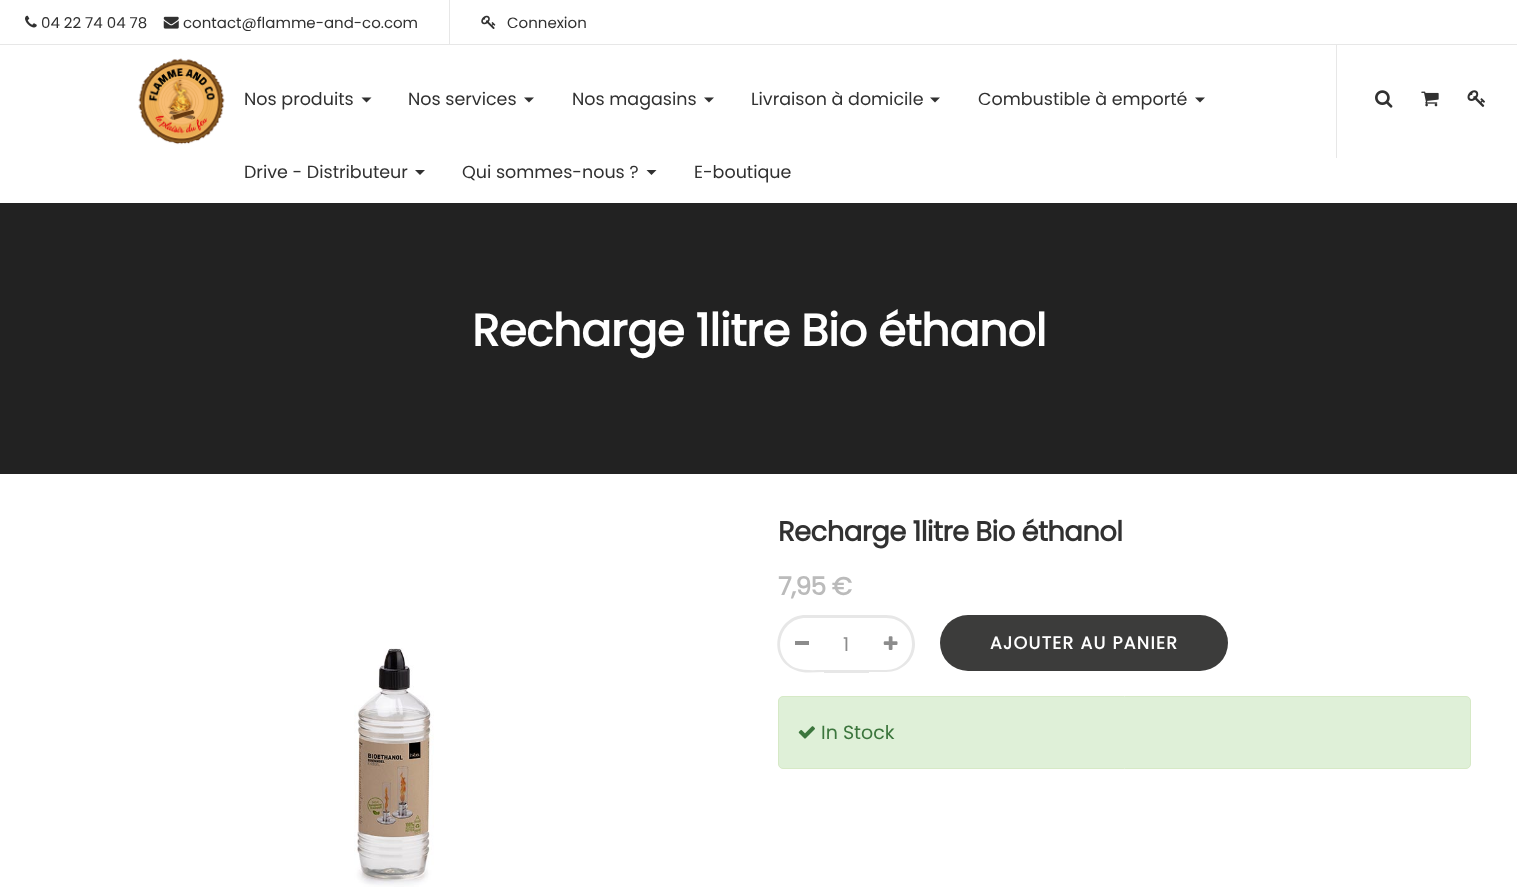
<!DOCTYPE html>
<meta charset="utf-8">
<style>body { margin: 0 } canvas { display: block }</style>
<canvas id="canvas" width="1517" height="893"></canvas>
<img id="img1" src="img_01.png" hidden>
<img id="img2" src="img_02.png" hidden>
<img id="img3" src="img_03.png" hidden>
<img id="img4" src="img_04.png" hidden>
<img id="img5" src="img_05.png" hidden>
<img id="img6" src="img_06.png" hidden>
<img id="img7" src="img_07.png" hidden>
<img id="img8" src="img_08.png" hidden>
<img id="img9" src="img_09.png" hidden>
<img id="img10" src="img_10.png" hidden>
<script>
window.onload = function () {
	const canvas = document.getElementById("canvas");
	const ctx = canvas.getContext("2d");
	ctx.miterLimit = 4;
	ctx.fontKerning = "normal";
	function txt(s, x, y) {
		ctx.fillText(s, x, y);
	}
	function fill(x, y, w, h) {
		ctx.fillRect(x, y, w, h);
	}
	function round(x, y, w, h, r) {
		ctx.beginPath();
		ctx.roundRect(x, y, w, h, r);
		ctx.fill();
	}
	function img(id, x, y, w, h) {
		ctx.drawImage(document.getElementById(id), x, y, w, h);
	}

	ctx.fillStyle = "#FFFFFF";
	fill(0, 0, 1517, 893);
	ctx.save();
	ctx.beginPath();
	ctx.moveTo(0, 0);
	ctx.lineTo(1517, 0);
	ctx.lineTo(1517, 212);
	ctx.lineTo(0, 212);
	ctx.closePath();
	ctx.moveTo(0, 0);
	ctx.lineTo(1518, 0);
	ctx.lineTo(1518, 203);
	ctx.lineTo(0, 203);
	ctx.closePath();
	ctx.clip("evenodd");
	ctx.fillStyle = "rgba(0, 0, 0, 0.08)";
	ctx.filter = "blur(2px)";
	ctx.beginPath();
	ctx.rect(0, 3, 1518, 202);
	ctx.fill();
	ctx.filter = "none";
	ctx.restore();
	ctx.fillStyle = "#E7E7E7";
	fill(0, 44, 1517, 1);
	img("img1", 25, 15, 12, 13);
	img("img2", 163, 16, 16, 13);
	fill(449, 0, 1, 44);
	img("img3", 481, 15, 15, 14);
	img("img4", 138, 58, 87, 87);
	ctx.fillStyle = "#313131";
	ctx.beginPath();
	ctx.moveTo(361.5, 97.5);
	ctx.lineTo(371.5, 97.5);
	ctx.lineTo(366.5, 102.5);
	ctx.closePath();
	ctx.fill();
	ctx.beginPath();
	ctx.moveTo(524, 97.5);
	ctx.lineTo(534, 97.5);
	ctx.lineTo(529, 102.5);
	ctx.closePath();
	ctx.fill();
	ctx.beginPath();
	ctx.moveTo(704, 97.5);
	ctx.lineTo(714, 97.5);
	ctx.lineTo(709, 102.5);
	ctx.closePath();
	ctx.fill();
	ctx.beginPath();
	ctx.moveTo(930, 97.5);
	ctx.lineTo(940, 97.5);
	ctx.lineTo(935, 102.5);
	ctx.closePath();
	ctx.fill();
	ctx.beginPath();
	ctx.moveTo(1195, 97.5);
	ctx.lineTo(1205, 97.5);
	ctx.lineTo(1200, 102.5);
	ctx.closePath();
	ctx.fill();
	ctx.beginPath();
	ctx.moveTo(415, 170);
	ctx.lineTo(425, 170);
	ctx.lineTo(420, 175);
	ctx.closePath();
	ctx.fill();
	ctx.beginPath();
	ctx.moveTo(646.5, 170);
	ctx.lineTo(656.5, 170);
	ctx.lineTo(651.5, 175);
	ctx.closePath();
	ctx.fill();
	ctx.fillStyle = "#E7E7E7";
	fill(1336, 45, 1, 113);
	img("img5", 1375, 90, 18, 18);
	img("img6", 1421, 91, 18, 16);
	img("img7", 1467, 90, 18, 17);
	ctx.fillStyle = "#222222";
	fill(0, 203, 1517, 271);
	img("img8", 354, 648, 80, 239);
	ctx.fillStyle = "#E7E7E7";
	ctx.beginPath();
	ctx.moveTo(806, 615);
	ctx.lineTo(824, 615);
	ctx.lineTo(824, 672);
	ctx.bezierCurveTo(814, 672, 804, 674, 795, 670);
	ctx.bezierCurveTo(766, 658, 775, 615, 806, 615);
	ctx.closePath();
	ctx.moveTo(806, 618);
	ctx.lineTo(824, 618);
	ctx.lineTo(824, 670);
	ctx.bezierCurveTo(815, 670, 804, 671, 796, 668);
	ctx.bezierCurveTo(770, 657, 778, 618, 806, 618);
	ctx.closePath();
	ctx.fill("evenodd");
	ctx.fillStyle = "#8C8C8C";
	fill(795, 641, 14, 4);
	ctx.fillStyle = "#E7E7E7";
	fill(824, 615, 45, 3);
	fill(824, 670, 45, 3);
	ctx.beginPath();
	ctx.moveTo(869, 615);
	ctx.lineTo(886, 615);
	ctx.bezierCurveTo(902, 615, 915, 628, 915, 644);
	ctx.bezierCurveTo(915, 660, 902, 672, 886, 672);
	ctx.lineTo(869, 672);
	ctx.closePath();
	ctx.moveTo(869, 618);
	ctx.lineTo(886, 618);
	ctx.bezierCurveTo(901, 618, 912, 629, 912, 644);
	ctx.bezierCurveTo(912, 658, 901, 670, 886, 670);
	ctx.lineTo(869, 670);
	ctx.closePath();
	ctx.fill("evenodd");
	img("img9", 883, 636, 15, 14);
	ctx.fillStyle = "#3C3C3B";
	round(940, 615, 288, 56, 28);
	ctx.fillStyle = "#DFF0D8";
	ctx.beginPath();
	ctx.roundRect(778.5, 696.5, 692, 72, 4.5);
	ctx.fill();
	ctx.strokeStyle = "#D6E9C6";
	ctx.stroke();
	img("img10", 798, 726, 17, 13);
	ctx.font = "15px Poppins";
	ctx.fillStyle = "#313131";
	txt("04 22 74 04 78", 41, 28);
	txt("contact@flamme-and-co.com", 183, 28);
	txt("Connexion", 507, 28);
	ctx.font = "17.5px Poppins";
	txt("Nos produits", 244, 105);
	txt("Nos services", 408, 105);
	txt("Nos magasins", 572, 105);
	txt("Livraison à domicile", 751, 105);
	txt("Combustible à emporté", 978, 105);
	txt("Drive - Distributeur", 244, 178);
	txt("Qui sommes-nous ?", 462, 178);
	txt("E-boutique", 694, 178);
	ctx.letterSpacing = "-0.6px";
	ctx.font = "bold 45px Poppins";
	ctx.fillStyle = "#FFFFFF";
	txt("Recharge 1litre Bio éthanol", 472, 346);
	ctx.font = "bold 27.5px Poppins";
	ctx.fillStyle = "#313131";
	txt("Recharge 1litre Bio éthanol", 778, 541);
	ctx.font = "bold 25px Poppins";
	ctx.fillStyle = "#BBBBBB";
	txt("7,95 €", 778, 595);
	ctx.letterSpacing = "0px";
	ctx.font = "19px Poppins";
	ctx.fillStyle = "#8C8C8C";
	txt("1", 843, 651);
	ctx.letterSpacing = "1.25px";
	ctx.font = "bold 17.5px Poppins";
	ctx.fillStyle = "#FFFFFF";
	txt("AJOUTER AU PANIER", 990, 649);
	ctx.letterSpacing = "0px";
	ctx.font = "19px Poppins";
	ctx.fillStyle = "#3C763D";
	txt("In Stock", 821, 739);
};
</script>
